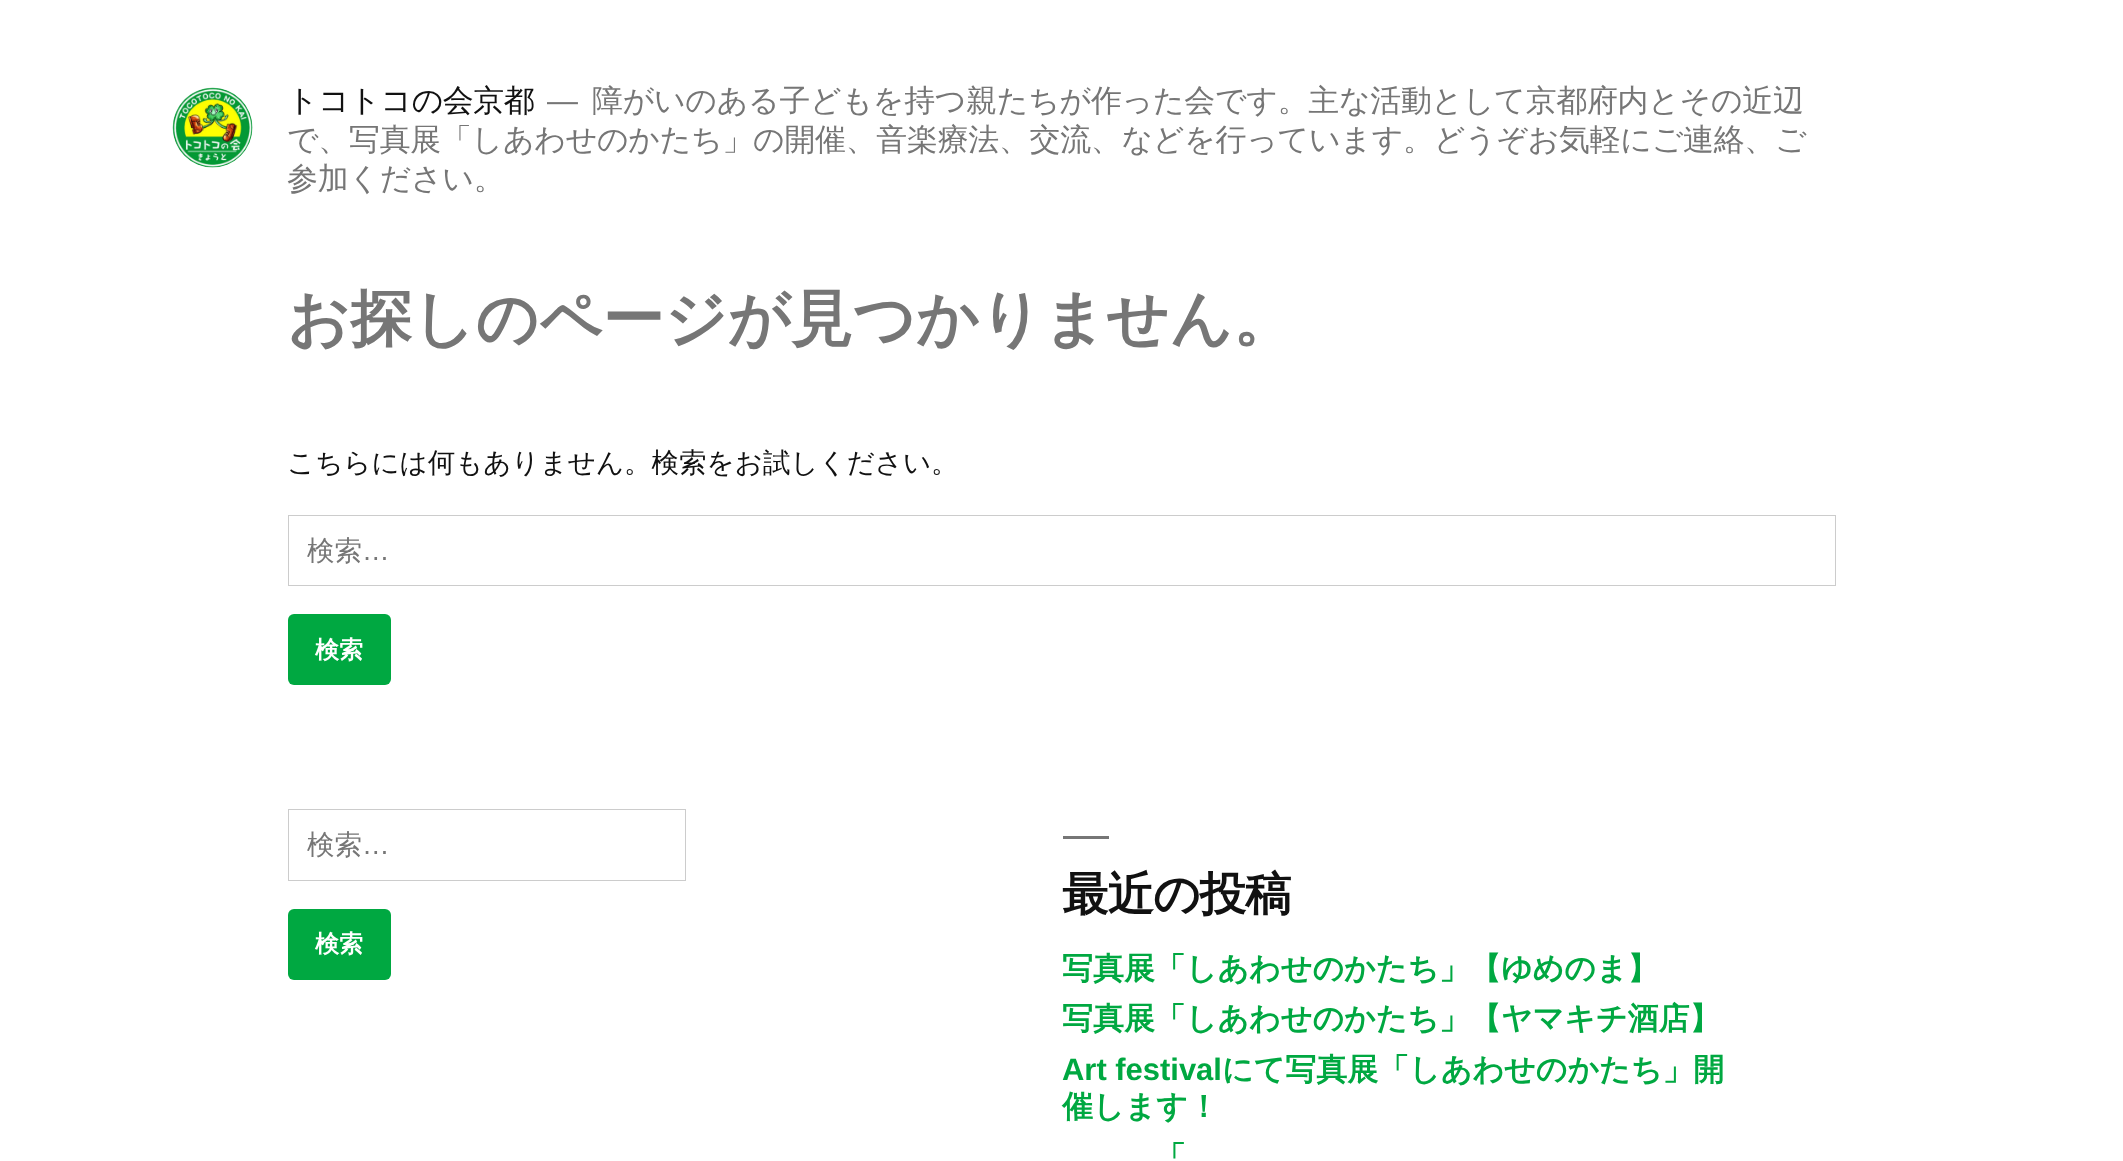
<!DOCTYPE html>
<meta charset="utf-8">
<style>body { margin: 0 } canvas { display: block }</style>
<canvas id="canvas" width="2123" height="1161"></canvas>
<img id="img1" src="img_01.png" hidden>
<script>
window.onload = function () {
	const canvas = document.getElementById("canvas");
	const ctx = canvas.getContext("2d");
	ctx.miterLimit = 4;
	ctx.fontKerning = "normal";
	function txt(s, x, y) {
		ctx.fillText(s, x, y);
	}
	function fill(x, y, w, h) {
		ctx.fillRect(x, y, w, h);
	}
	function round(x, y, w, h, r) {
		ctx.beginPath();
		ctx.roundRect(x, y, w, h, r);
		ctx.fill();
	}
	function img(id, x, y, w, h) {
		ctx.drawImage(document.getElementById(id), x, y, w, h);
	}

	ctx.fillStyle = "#FFFFFF";
	fill(0, 0, 2123, 1161);
	img("img1", 172, 87, 81, 81);
	ctx.strokeStyle = "#CCCCCC";
	ctx.strokeRect(288.5, 515.5, 1547, 70);
	ctx.fillStyle = "#00A841";
	round(288, 614, 103, 71, 6);
	ctx.strokeRect(288.5, 809.5, 397, 71);
	round(288, 909, 103, 71, 6);
	ctx.fillStyle = "#767676";
	fill(1063, 836, 46, 3);
	ctx.letterSpacing = "-0.5px";
	ctx.font = "500 30.95px WenQuanYi Zen Hei";
	ctx.fillStyle = "#111111";
	txt("トコトコの会京都", 287, 111);
	ctx.letterSpacing = "-0.3px";
	ctx.font = "30.95px Liberation Sans";
	ctx.fillStyle = "#767676";
	txt("—", 547, 111);
	ctx.font = "500 30.95px WenQuanYi Zen Hei";
	txt("障がいのある子どもを持つ親たちが作った会です。主な活動として京都府内とその近辺", 592, 111);
	txt("で、写真展「しあわせのかたち」の開催、音楽療法、交流、などを行っています。どうぞお気軽にご連絡、ご", 287, 150);
	txt("参加ください。", 287, 189);
	ctx.letterSpacing = "0px";
	ctx.font = "bold 61.9px WenQuanYi Zen Hei";
	txt("お探しのページが見つかりません。", 287, 340);
	ctx.font = "500 27.5px WenQuanYi Zen Hei";
	ctx.fillStyle = "#111111";
	txt("こちらには何もありません。検索をお試しください。", 287, 472);
	ctx.fillStyle = "#767676";
	txt("検索", 307, 560);
	ctx.font = "27.5px Liberation Sans";
	txt("…", 362, 560);
	ctx.font = "bold 24px WenQuanYi Zen Hei";
	ctx.fillStyle = "#FFFFFF";
	txt("検索", 315, 658);
	ctx.font = "500 27.5px WenQuanYi Zen Hei";
	ctx.fillStyle = "#767676";
	txt("検索", 307, 854);
	ctx.font = "27.5px Liberation Sans";
	txt("…", 362, 854);
	ctx.font = "bold 24px WenQuanYi Zen Hei";
	ctx.fillStyle = "#FFFFFF";
	txt("検索", 315, 952);
	ctx.letterSpacing = "-1px";
	ctx.font = "bold 46.5px WenQuanYi Zen Hei";
	ctx.fillStyle = "#111111";
	txt("最近の投稿", 1062, 910);
	ctx.letterSpacing = "0px";
	ctx.font = "bold 30.95px WenQuanYi Zen Hei";
	ctx.fillStyle = "#00A841";
	txt("写真展「しあわせのかたち」【ゆめのま】", 1062, 979);
	txt("写真展「しあわせのかたち」【ヤマキチ酒店】", 1062, 1029);
	ctx.font = "bold 30.95px Liberation Sans";
	txt("Art festival", 1062, 1080);
	ctx.font = "bold 30.95px WenQuanYi Zen Hei";
	txt("にて写真展「しあわせのかたち」開", 1222, 1080);
	txt("催します！", 1062, 1117);
	txt("「", 1155, 1168);
};
</script>
